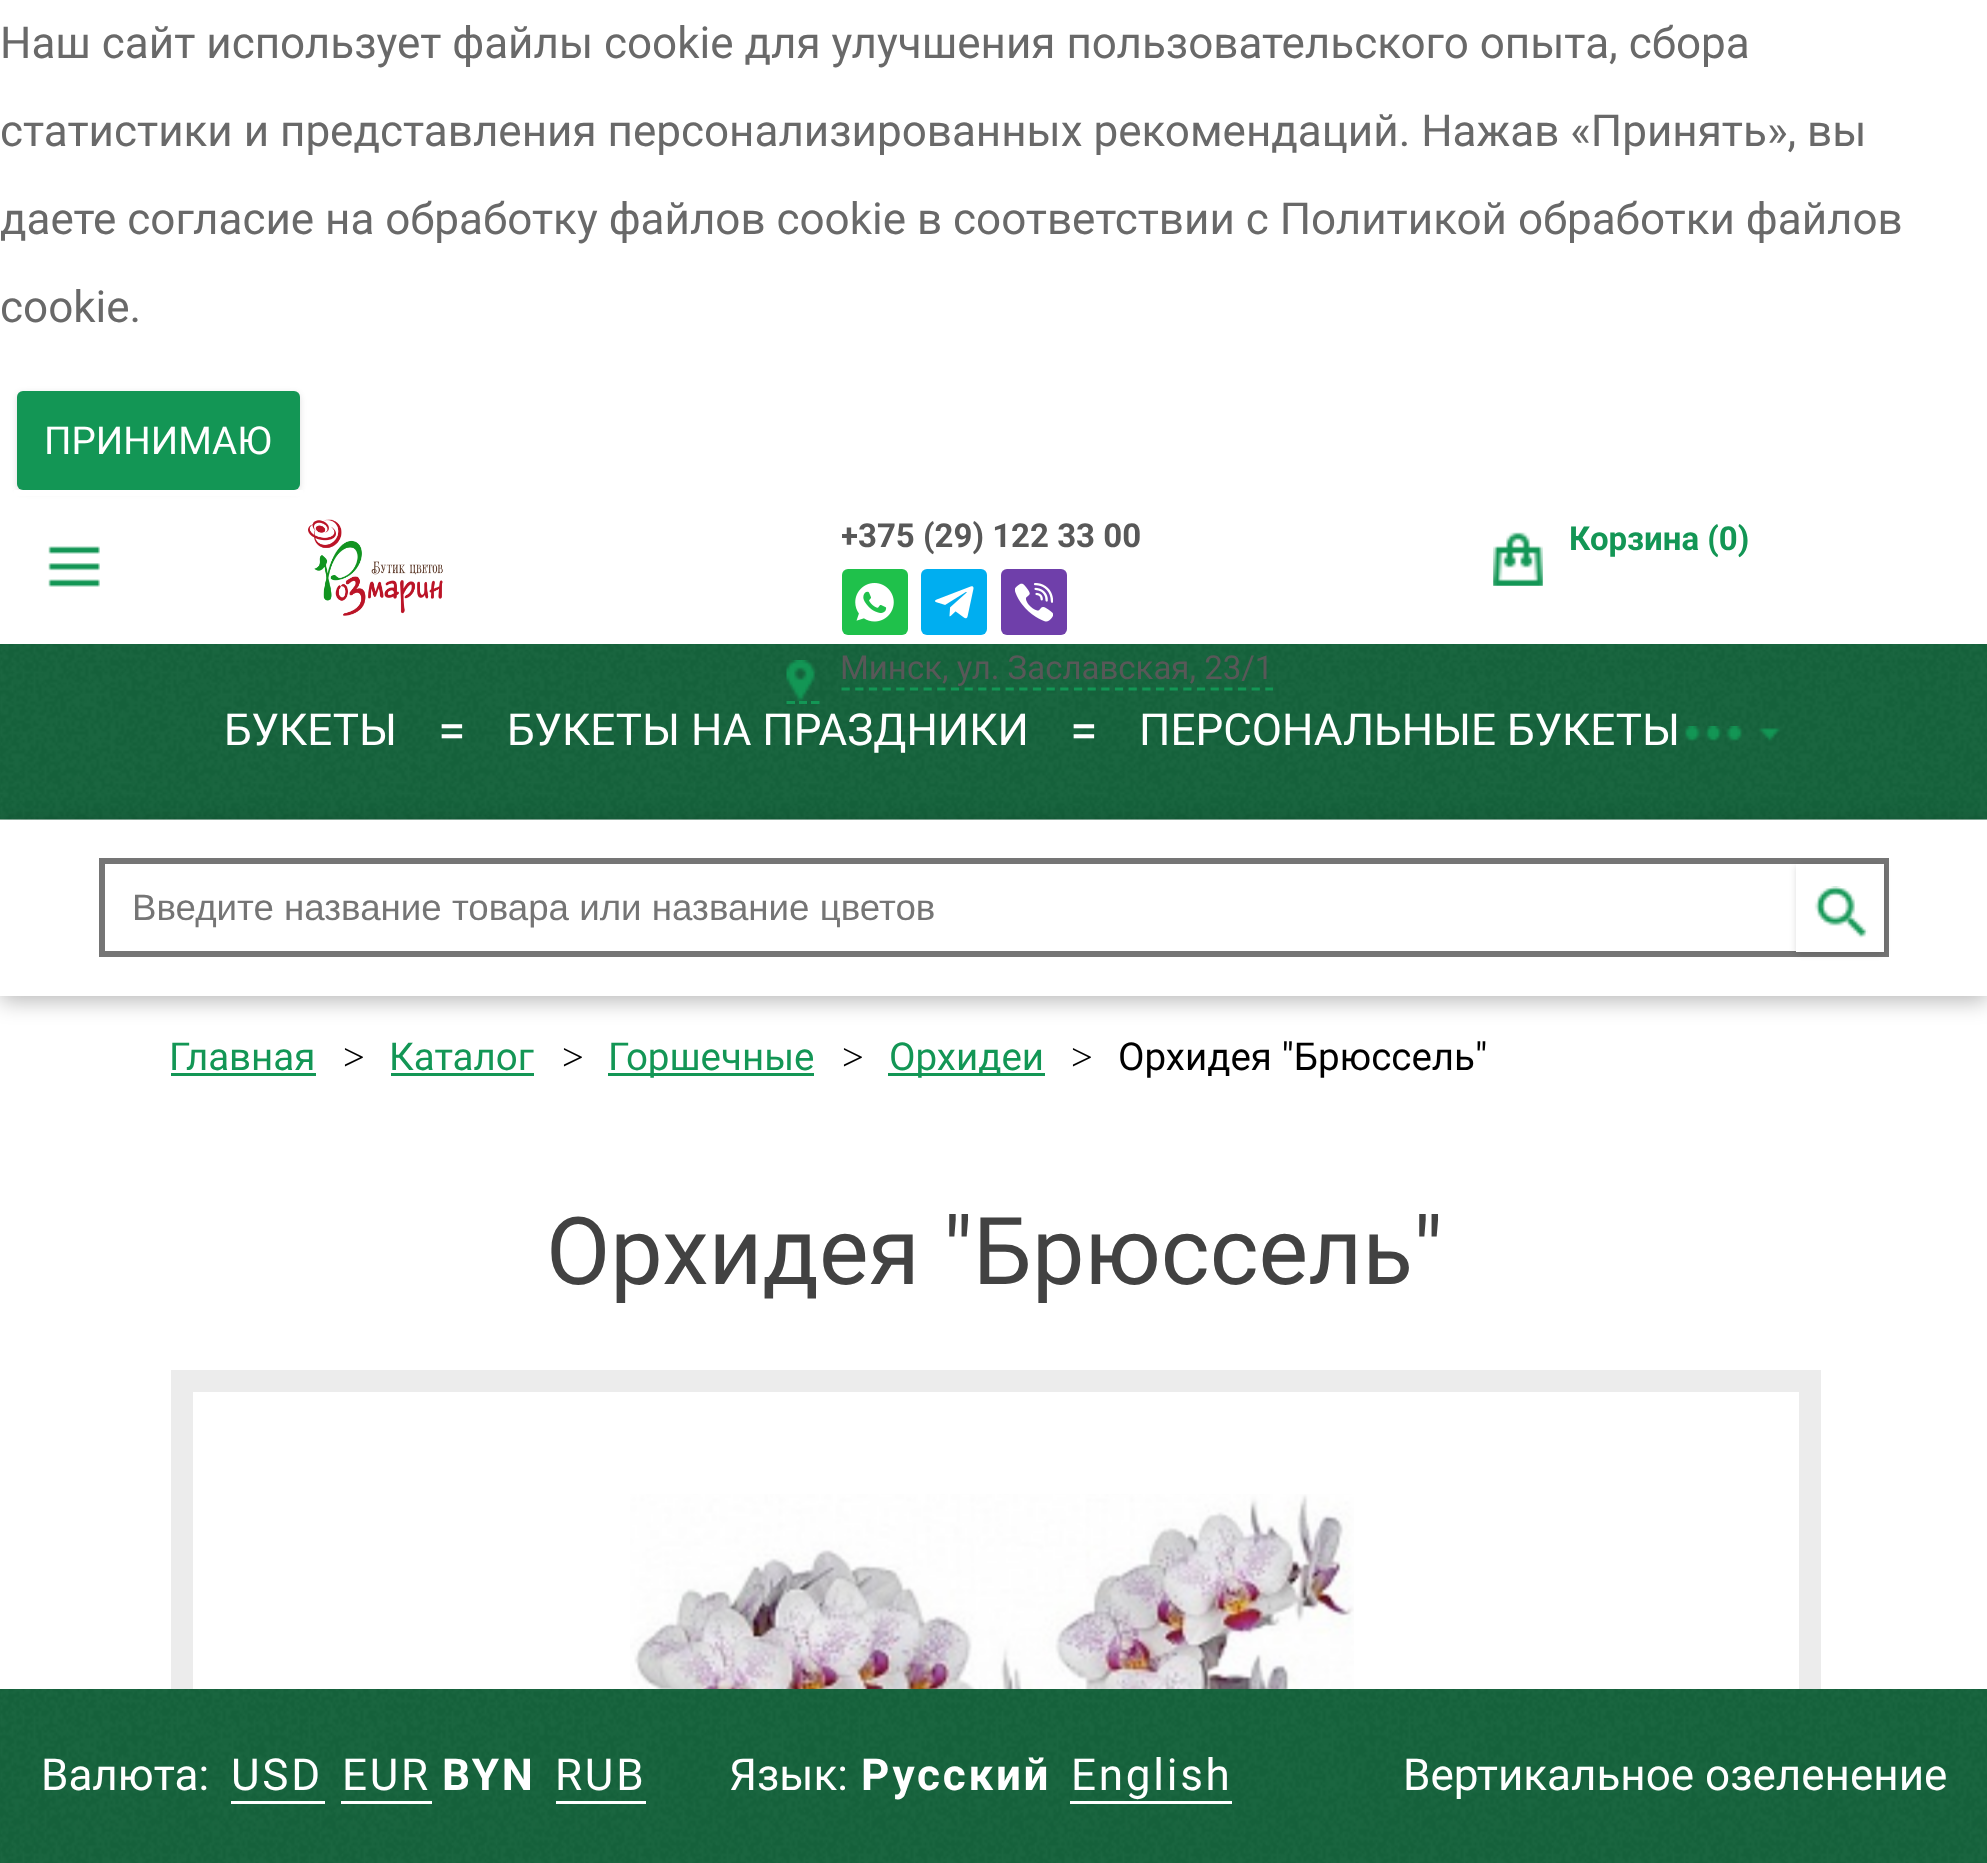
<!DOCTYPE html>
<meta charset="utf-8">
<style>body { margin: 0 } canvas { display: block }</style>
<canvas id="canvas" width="1987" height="1863"></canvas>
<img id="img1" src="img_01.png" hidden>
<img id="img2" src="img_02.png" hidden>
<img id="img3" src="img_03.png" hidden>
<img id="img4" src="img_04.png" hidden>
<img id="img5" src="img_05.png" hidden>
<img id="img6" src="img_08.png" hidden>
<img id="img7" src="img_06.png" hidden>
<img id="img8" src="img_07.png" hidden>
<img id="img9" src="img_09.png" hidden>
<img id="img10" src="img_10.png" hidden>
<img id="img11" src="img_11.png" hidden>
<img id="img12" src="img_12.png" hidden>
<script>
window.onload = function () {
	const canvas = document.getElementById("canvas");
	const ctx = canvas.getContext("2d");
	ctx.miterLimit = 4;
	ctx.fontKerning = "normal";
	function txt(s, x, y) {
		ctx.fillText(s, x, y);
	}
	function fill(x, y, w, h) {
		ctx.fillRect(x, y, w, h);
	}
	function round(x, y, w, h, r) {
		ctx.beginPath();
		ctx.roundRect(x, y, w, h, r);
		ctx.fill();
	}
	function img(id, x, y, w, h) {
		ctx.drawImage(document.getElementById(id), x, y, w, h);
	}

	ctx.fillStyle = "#FFFFFF";
	fill(0, 0, 1987, 1863);
	ctx.fillStyle = "rgba(0, 0, 0, 0.13)";
	ctx.filter = "blur(3px)";
	ctx.beginPath();
	ctx.roundRect(17, 393, 283, 99, 6);
	ctx.fill();
	ctx.filter = "none";
	ctx.fillStyle = "#139655";
	round(17, 391, 283, 99, 6);
	ctx.fillStyle = "#FFFFFF";
	fill(14, 490, 289, 6);
	img("img1", 48, 546, 52, 41);
	img("img2", 308, 519, 135, 97);
	ctx.fillStyle = "#1FC14B";
	round(842, 569, 66, 66, 6);
	img("img3", 855, 583, 39, 39);
	ctx.fillStyle = "#00AEF0";
	round(921, 569, 66, 66, 6);
	img("img4", 935, 586, 39, 33);
	ctx.fillStyle = "#6F3FAA";
	round(1001, 569, 66, 66, 6);
	img("img5", 1015, 583, 38, 39);
	img("img6", 0, 644, 1987, 176);
	ctx.beginPath();
	ctx.moveTo(841.5, 689);
	ctx.lineTo(1273, 689);
	ctx.strokeStyle = "#139655";
	ctx.lineWidth = 2.8;
	ctx.setLineDash([8.25, 5.42]);
	ctx.stroke();
	ctx.beginPath();
	ctx.moveTo(786.5, 702.5);
	ctx.lineTo(795, 702.5);
	ctx.moveTo(799, 702.5);
	ctx.lineTo(807, 702.5);
	ctx.moveTo(811, 702.5);
	ctx.lineTo(819.5, 702.5);
	ctx.setLineDash([]);
	ctx.stroke();
	img("img7", 786, 660, 29, 41);
	img("img8", 1493, 532, 50, 54);
	img("img9", 1685, 726, 95, 15);
	ctx.fillStyle = "rgba(0, 0, 0, 0.28)";
	ctx.filter = "blur(11px)";
	ctx.beginPath();
	ctx.rect(0, 825, 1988, 176);
	ctx.fill();
	ctx.filter = "none";
	ctx.fillStyle = "#FFFFFF";
	fill(0, 820, 1987, 176);
	ctx.strokeStyle = "#757575";
	ctx.lineWidth = 6;
	ctx.strokeRect(102, 861, 1784, 93);
	ctx.fillStyle = "rgba(0, 0, 0, 0.13)";
	ctx.filter = "blur(3px)";
	ctx.beginPath();
	ctx.rect(1796, 866, 88, 88);
	ctx.fill();
	ctx.filter = "none";
	ctx.fillStyle = "#FFFFFF";
	fill(1796, 864, 88, 88);
	img("img10", 1814, 886, 54, 52);
	ctx.fillStyle = "#139655";
	fill(171, 1073, 145, 3);
	fill(391, 1073, 143, 3);
	fill(608, 1073, 206, 3);
	fill(888, 1073, 157, 3);
	ctx.strokeStyle = "#ECECEC";
	ctx.lineWidth = 22;
	ctx.strokeRect(182, 1381, 1628, 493);
	img("img11", 630, 1494, 724, 195);
	img("img12", 0, 1689, 1987, 174);
	ctx.fillStyle = "#FFFFFF";
	fill(231, 1801, 94, 3);
	fill(341, 1801, 91, 3);
	fill(556, 1801, 90, 3);
	fill(1070, 1801, 162, 3);
	ctx.font = "44px Roboto";
	ctx.fillStyle = "#696969";
	txt("Наш сайт использует файлы cookie для улучшения пользовательского опыта, сбора", 0, 58);
	txt("статистики и представления персонализированных рекомендаций. Нажав «Принять», вы", 0, 146);
	txt("даете согласие на обработку файлов cookie в соответствии с Политикой обработки файлов", 0, 234);
	txt("cookie.", 0, 322);
	ctx.font = "38.5px Roboto";
	ctx.fillStyle = "#FFFFFF";
	txt("ПРИНИМАЮ", 44, 454);
	ctx.save();
	ctx.beginPath();
	ctx.rect(842, 517, 687, 44);
	ctx.clip();
	ctx.font = "bold 33px Roboto";
	ctx.fillStyle = "#585858";
	txt("+375 (29) 122 33 00", 840, 547);
	ctx.restore();
	ctx.font = "33px Roboto";
	ctx.fillStyle = "#585858";
	txt("Минск, ул. Заславская, 23/1", 840, 679);
	ctx.font = "bold 33px Roboto";
	ctx.fillStyle = "#139655";
	txt("Корзина (0)", 1569, 550);
	ctx.font = "44px Roboto";
	ctx.fillStyle = "#FFFFFF";
	txt("БУКЕТЫ", 224, 745);
	ctx.font = "50px Roboto";
	txt("=", 438, 748);
	ctx.font = "44px Roboto";
	txt("БУКЕТЫ НА ПРАЗДНИКИ", 507, 745);
	ctx.font = "50px Roboto";
	txt("=", 1070, 748);
	ctx.font = "44px Roboto";
	txt("ПЕРСОНАЛЬНЫЕ БУКЕТЫ", 1139, 745);
	ctx.font = "36.7px Liberation Sans";
	ctx.fillStyle = "#757575";
	txt("Введите название товара или название цветов", 132, 920);
	ctx.font = "38.5px Roboto";
	ctx.fillStyle = "#139655";
	txt("Главная", 169, 1070);
	ctx.font = "38.5px Liberation Serif";
	ctx.fillStyle = "#000000";
	txt(">", 343, 1070);
	ctx.font = "38.5px Roboto";
	ctx.fillStyle = "#139655";
	txt("Каталог", 389, 1070);
	ctx.font = "38.5px Liberation Serif";
	ctx.fillStyle = "#000000";
	txt(">", 562, 1070);
	ctx.font = "38.5px Roboto";
	ctx.fillStyle = "#139655";
	txt("Горшечные", 608, 1070);
	ctx.font = "38.5px Liberation Serif";
	ctx.fillStyle = "#000000";
	txt(">", 842, 1070);
	ctx.font = "38.5px Roboto";
	ctx.fillStyle = "#139655";
	txt("Орхидеи", 889, 1070);
	ctx.font = "38.5px Liberation Serif";
	ctx.fillStyle = "#000000";
	txt(">", 1071, 1070);
	ctx.font = "38.5px Roboto";
	txt("Орхидея \"Брюссель\"", 1118, 1070);
	ctx.font = "93.5px Roboto";
	ctx.fillStyle = "#424242";
	txt("Орхидея \"Брюссель\"", 546, 1284);
	ctx.font = "44px Roboto";
	ctx.fillStyle = "#FFFFFF";
	txt("Валюта:", 41, 1790);
	ctx.letterSpacing = "2.75px";
	txt("USD", 231, 1790);
	txt("EUR", 342, 1790);
	ctx.font = "bold 44px Roboto";
	txt("BYN", 442, 1790);
	ctx.font = "44px Roboto";
	txt("RUB", 555, 1790);
	ctx.letterSpacing = "0px";
	txt("Язык:", 729, 1790);
	ctx.letterSpacing = "2.75px";
	ctx.font = "bold 44px Roboto";
	txt("Русский", 861, 1790);
	ctx.font = "44px Roboto";
	txt("English", 1071, 1790);
	ctx.letterSpacing = "0px";
	txt("Вертикальное озеленение", 1403, 1790);
};
</script>
